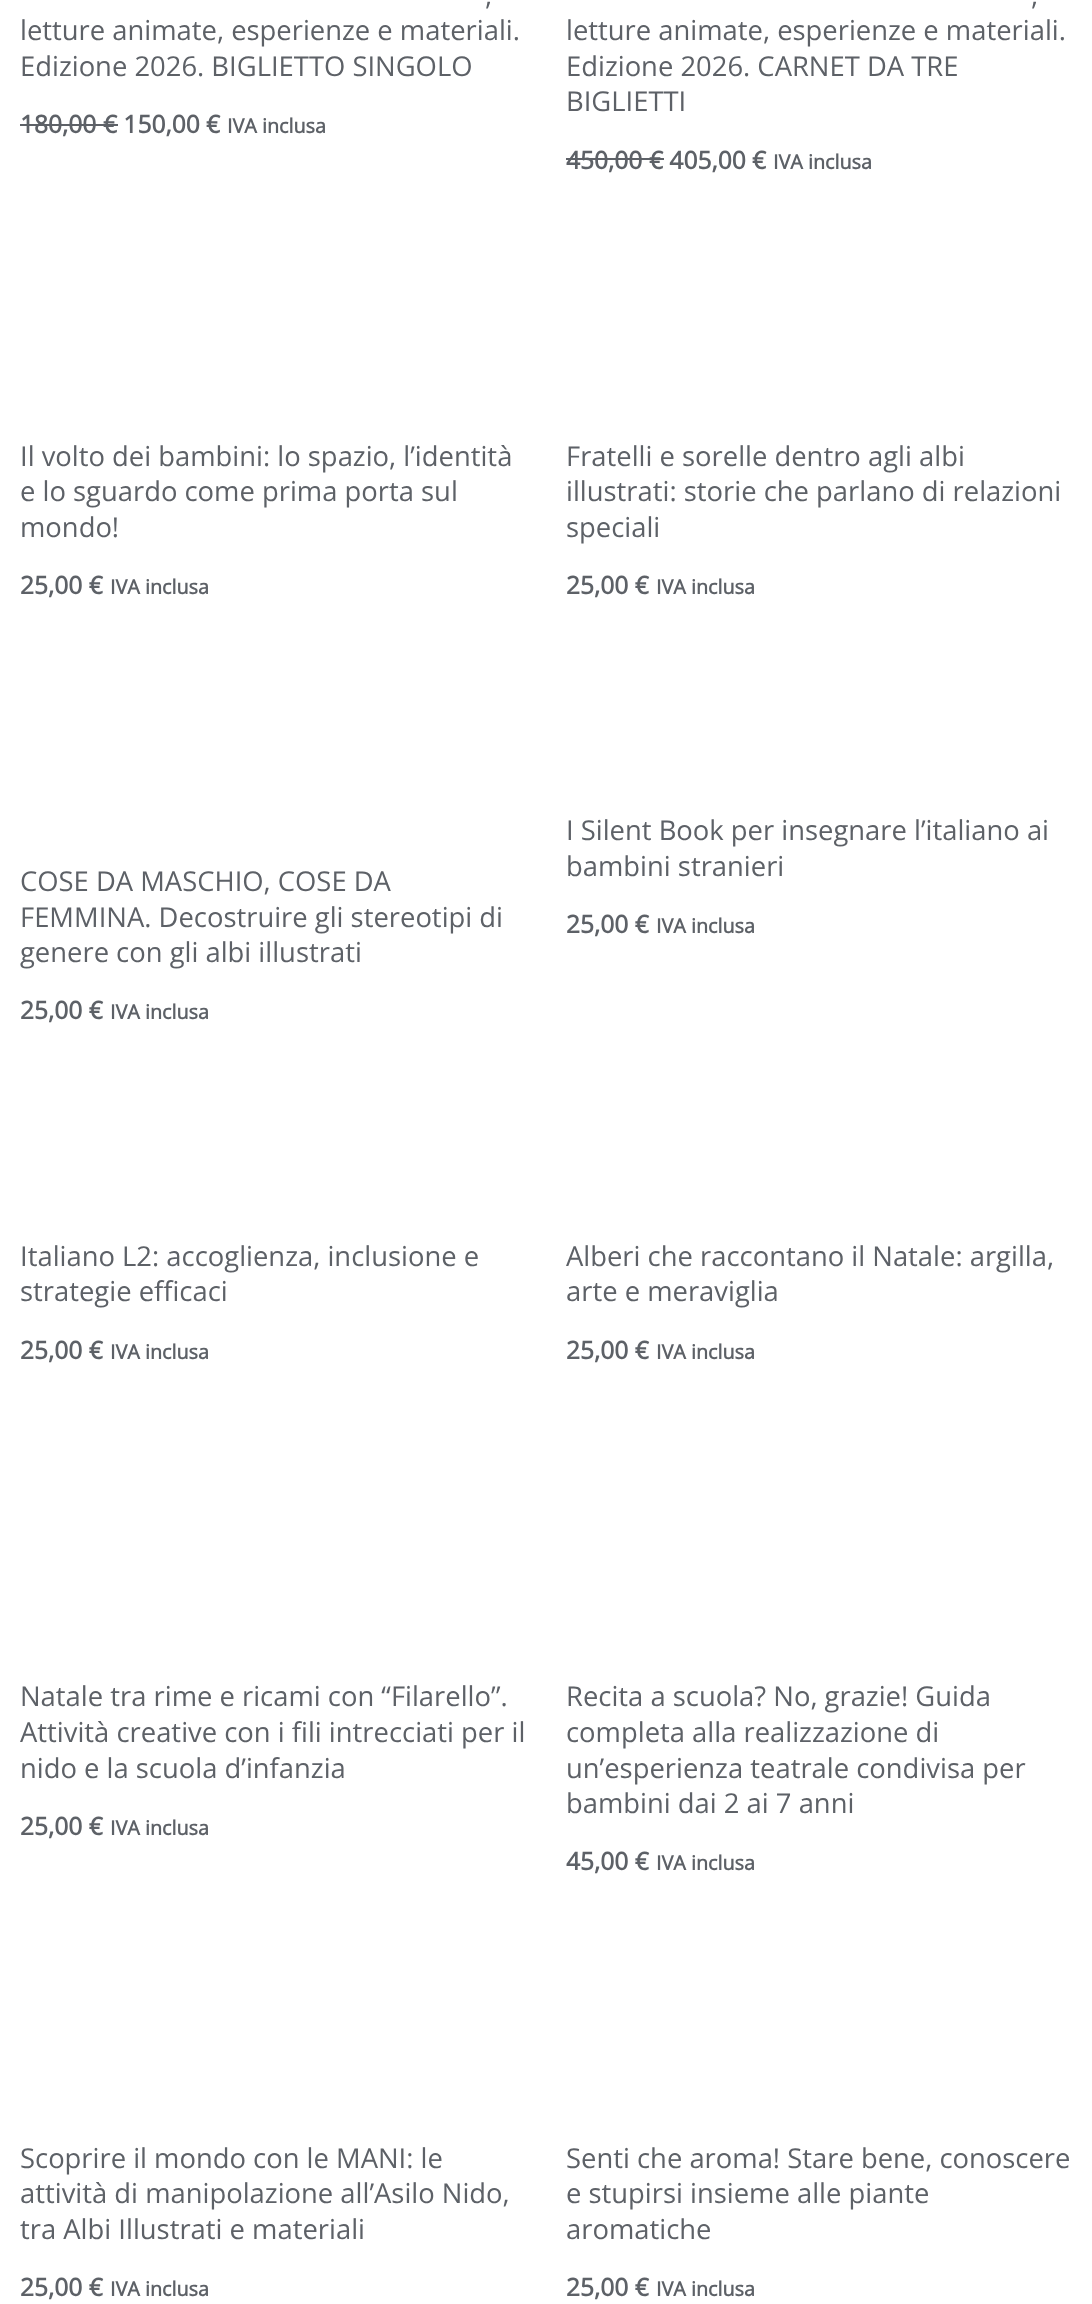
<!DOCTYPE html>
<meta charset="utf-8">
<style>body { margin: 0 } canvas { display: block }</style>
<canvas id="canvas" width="1092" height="2304"></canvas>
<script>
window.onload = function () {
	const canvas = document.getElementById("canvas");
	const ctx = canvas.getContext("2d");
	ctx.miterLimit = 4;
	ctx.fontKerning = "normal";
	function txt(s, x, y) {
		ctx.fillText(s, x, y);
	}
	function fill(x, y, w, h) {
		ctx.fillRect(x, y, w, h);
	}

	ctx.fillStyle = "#FFFFFF";
	fill(0, 0, 1092, 2304);
	ctx.fillStyle = "#5D6167";
	fill(20, 124, 84, 2);
	fill(104, 124, 14, 2);
	fill(566, 158, 84, 2);
	fill(650, 158, 14, 2);
	ctx.font = "27.4px Open Sans";
	txt(",", 485, 5);
	txt("letture animate, esperienze e materiali.", 20, 40);
	txt("Edizione 2026. BIGLIETTO SINGOLO", 20, 76);
	ctx.font = "bold 24.5px Open Sans";
	txt("180,00", 20, 133);
	txt("€ 150,00 €", 103, 133);
	ctx.font = "bold 19.75px Open Sans";
	txt("IVA inclusa", 227, 133);
	ctx.font = "27.4px Open Sans";
	txt(",", 1031, 5);
	txt("letture animate, esperienze e materiali.", 566, 40);
	txt("Edizione 2026. CARNET DA TRE", 566, 76);
	txt("BIGLIETTI", 566, 111);
	ctx.font = "bold 24.5px Open Sans";
	txt("450,00", 566, 169);
	txt("€ 405,00 €", 649, 169);
	ctx.font = "bold 19.75px Open Sans";
	txt("IVA inclusa", 773, 169);
	ctx.font = "27.4px Open Sans";
	txt("Il volto dei bambini: lo spazio, l’identità", 20, 466);
	txt("e lo sguardo come prima porta sul", 20, 501);
	txt("mondo!", 20, 537);
	ctx.font = "bold 24.5px Open Sans";
	txt("25,00 €", 20, 594);
	ctx.font = "bold 19.75px Open Sans";
	txt("IVA inclusa", 110, 594);
	ctx.font = "27.4px Open Sans";
	txt("Fratelli e sorelle dentro agli albi", 566, 466);
	txt("illustrati: storie che parlano di relazioni", 566, 501);
	txt("speciali", 566, 537);
	ctx.font = "bold 24.5px Open Sans";
	txt("25,00 €", 566, 594);
	ctx.font = "bold 19.75px Open Sans";
	txt("IVA inclusa", 656, 594);
	ctx.font = "27.4px Open Sans";
	txt("COSE DA MASCHIO, COSE DA", 20, 891);
	txt("FEMMINA. Decostruire gli stereotipi di", 20, 927);
	txt("genere con gli albi illustrati", 20, 962);
	ctx.font = "bold 24.5px Open Sans";
	txt("25,00 €", 20, 1019);
	ctx.font = "bold 19.75px Open Sans";
	txt("IVA inclusa", 110, 1019);
	ctx.font = "27.4px Open Sans";
	txt("I Silent Book per insegnare l’italiano ai", 566, 840);
	txt("bambini stranieri", 566, 876);
	ctx.font = "bold 24.5px Open Sans";
	txt("25,00 €", 566, 933);
	ctx.font = "bold 19.75px Open Sans";
	txt("IVA inclusa", 656, 933);
	ctx.font = "27.4px Open Sans";
	txt("Italiano L2: accoglienza, inclusione e", 20, 1266);
	txt("strategie efficaci", 20, 1301);
	ctx.font = "bold 24.5px Open Sans";
	txt("25,00 €", 20, 1359);
	ctx.font = "bold 19.75px Open Sans";
	txt("IVA inclusa", 110, 1359);
	ctx.font = "27.4px Open Sans";
	txt("Alberi che raccontano il Natale: argilla,", 566, 1266);
	txt("arte e meraviglia", 566, 1301);
	ctx.font = "bold 24.5px Open Sans";
	txt("25,00 €", 566, 1359);
	ctx.font = "bold 19.75px Open Sans";
	txt("IVA inclusa", 656, 1359);
	ctx.font = "27.4px Open Sans";
	txt("Natale tra rime e ricami con “Filarello”.", 20, 1706);
	txt("Attività creative con i fili intrecciati per il", 20, 1742);
	txt("nido e la scuola d’infanzia", 20, 1778);
	ctx.font = "bold 24.5px Open Sans";
	txt("25,00 €", 20, 1835);
	ctx.font = "bold 19.75px Open Sans";
	txt("IVA inclusa", 110, 1835);
	ctx.font = "27.4px Open Sans";
	txt("Recita a scuola? No, grazie! Guida", 566, 1706);
	txt("completa alla realizzazione di", 566, 1742);
	txt("un’esperienza teatrale condivisa per", 566, 1778);
	txt("bambini dai 2 ai 7 anni", 566, 1813);
	ctx.font = "bold 24.5px Open Sans";
	txt("45,00 €", 566, 1870);
	ctx.font = "bold 19.75px Open Sans";
	txt("IVA inclusa", 656, 1870);
	ctx.font = "27.4px Open Sans";
	txt("Scoprire il mondo con le MANI: le", 20, 2168);
	txt("attività di manipolazione all’Asilo Nido,", 20, 2203);
	txt("tra Albi Illustrati e materiali", 20, 2239);
	ctx.font = "bold 24.5px Open Sans";
	txt("25,00 €", 20, 2296);
	ctx.font = "bold 19.75px Open Sans";
	txt("IVA inclusa", 110, 2296);
	ctx.font = "27.4px Open Sans";
	txt("Senti che aroma! Stare bene, conoscere", 566, 2168);
	txt("e stupirsi insieme alle piante", 566, 2203);
	txt("aromatiche", 566, 2239);
	ctx.font = "bold 24.5px Open Sans";
	txt("25,00 €", 566, 2296);
	ctx.font = "bold 19.75px Open Sans";
	txt("IVA inclusa", 656, 2296);
};
</script>
